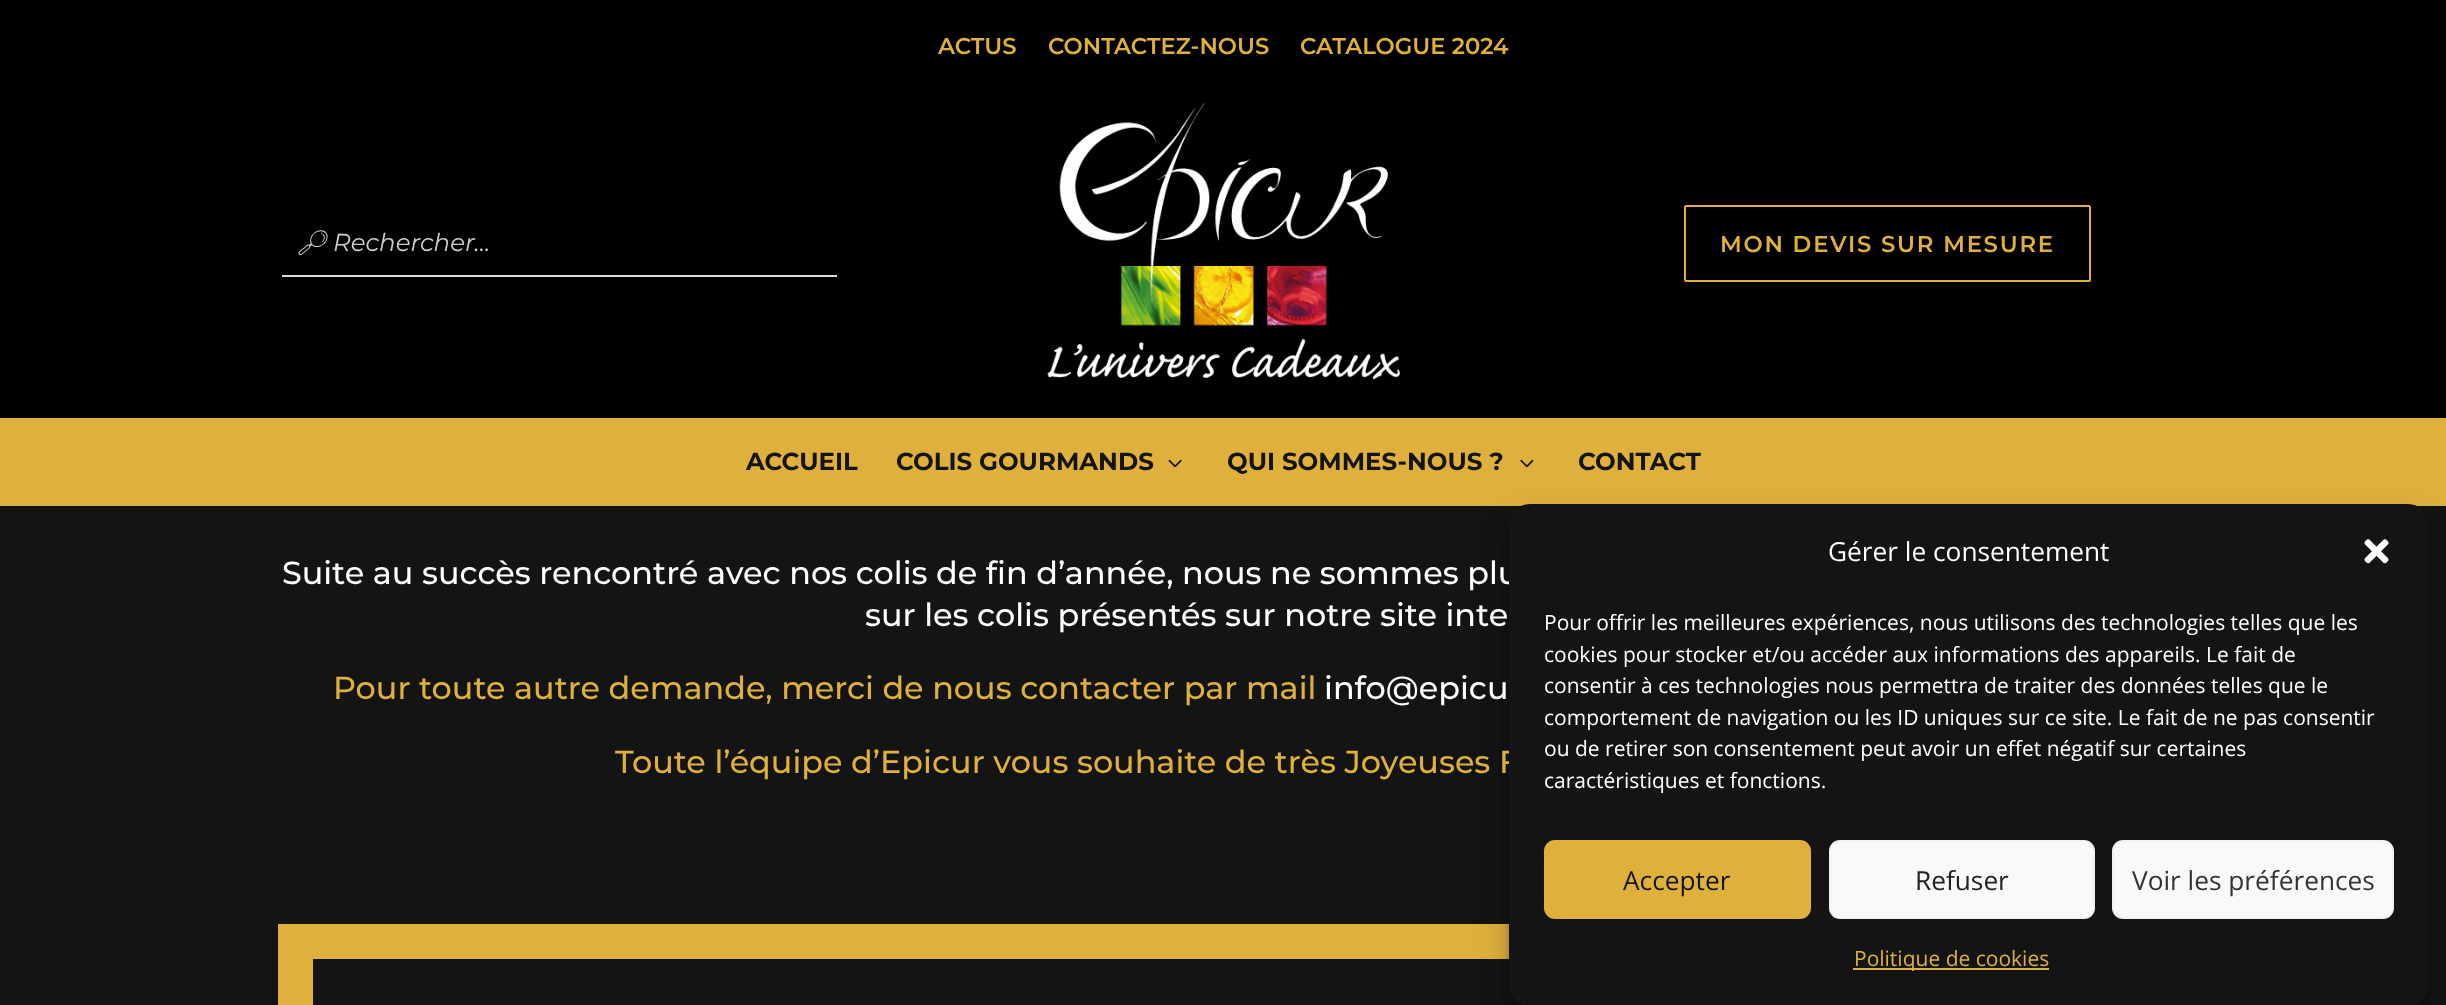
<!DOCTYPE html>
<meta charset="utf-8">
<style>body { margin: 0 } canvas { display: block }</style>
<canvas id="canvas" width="2446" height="1005"></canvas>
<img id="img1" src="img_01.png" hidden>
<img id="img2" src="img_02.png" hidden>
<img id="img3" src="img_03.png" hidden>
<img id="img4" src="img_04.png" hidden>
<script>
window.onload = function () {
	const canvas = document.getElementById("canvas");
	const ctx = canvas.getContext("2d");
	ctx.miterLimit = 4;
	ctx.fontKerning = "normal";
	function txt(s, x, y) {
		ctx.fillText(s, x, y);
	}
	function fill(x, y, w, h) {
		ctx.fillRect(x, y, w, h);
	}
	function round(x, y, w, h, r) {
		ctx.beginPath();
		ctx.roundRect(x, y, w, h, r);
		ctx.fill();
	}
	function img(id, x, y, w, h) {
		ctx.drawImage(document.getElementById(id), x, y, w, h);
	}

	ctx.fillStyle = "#141414";
	fill(0, 0, 2446, 1005);
	ctx.fillStyle = "#000000";
	fill(0, 0, 2446, 418);
	ctx.fillStyle = "#DDDDDD";
	fill(282, 275, 555, 2);
	img("img1", 1047, 103, 353, 277);
	ctx.beginPath();
	ctx.roundRect(1685, 206, 405, 75, 1);
	ctx.strokeStyle = "#E0B03D";
	ctx.lineWidth = 2;
	ctx.stroke();
	ctx.fillStyle = "#E0B03D";
	fill(0, 418, 2446, 88);
	img("img2", 1168, 459, 14, 9);
	img("img3", 1520, 459, 14, 9);
	ctx.lineWidth = 35;
	ctx.strokeRect(295.5, 941.5, 1855, 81);
	ctx.fillStyle = "rgba(0, 0, 0, 0.23)";
	ctx.filter = "blur(5px)";
	ctx.beginPath();
	ctx.roundRect(1509, 515, 920, 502, 21);
	ctx.fill();
	ctx.filter = "none";
	ctx.fillStyle = "rgba(0, 0, 0, 0.19)";
	ctx.filter = "blur(17.5px)";
	ctx.beginPath();
	ctx.roundRect(1509, 522, 920, 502, 21);
	ctx.fill();
	ctx.filter = "none";
	ctx.font = "600 22.75px Montserrat";
	ctx.fillStyle = "#E0B03D";
	txt("ACTUS", 938, 54);
	txt("CONTACTEZ-NOUS", 1048, 54);
	txt("CATALOGUE 2024", 1300, 54);
	ctx.font = "italic 24.5px Noto Emoji";
	ctx.fillStyle = "#CCCCCC";
	txt("🔎︎", 296, 251);
	ctx.font = "italic 24.5px Montserrat";
	txt("Rechercher...", 333, 251);
	ctx.letterSpacing = "1.75px";
	ctx.font = "600 22.75px Montserrat";
	ctx.fillStyle = "#E0B03D";
	txt("MON DEVIS SUR MESURE", 1720, 252);
	ctx.letterSpacing = "0px";
	ctx.font = "bold 24.5px Montserrat";
	ctx.fillStyle = "#141414";
	txt("ACCUEIL", 746, 470);
	txt("COLIS GOURMANDS", 896, 470);
	txt("QUI SOMMES-NOUS ?", 1227, 470);
	txt("CONTACT", 1578, 470);
	ctx.font = "500 31.85px Montserrat";
	ctx.fillStyle = "#FFFFFF";
	txt("Suite au succès rencontré avec nos colis de fin d’année, nous ne sommes plu", 282, 584);
	txt("sur les colis présentés sur notre site inte", 865, 626);
	ctx.fillStyle = "#E0B03D";
	txt("Pour toute autre demande, merci de nous contacter par mail", 333, 699);
	ctx.fillStyle = "#FFFFFF";
	txt("info@epicu", 1324, 699);
	ctx.fillStyle = "#E0B03D";
	txt("Toute l’équipe d’Epicur vous souhaite de très Joyeuses F", 615, 773);
	ctx.fillStyle = "#141414";
	round(1509, 504, 920, 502, 21);
	ctx.font = "26.25px Open Sans";
	ctx.fillStyle = "#FFFFFF";
	txt("Gérer le consentement", 1828, 561);
	img("img4", 2364, 539, 25, 25);
	ctx.font = "21px Open Sans";
	txt("Pour offrir les meilleures expériences, nous utilisons des technologies telles que les", 1544, 630);
	txt("cookies pour stocker et/ou accéder aux informations des appareils. Le fait de", 1544, 662);
	txt("consentir à ces technologies nous permettra de traiter des données telles que le", 1544, 693);
	txt("comportement de navigation ou les ID uniques sur ce site. Le fait de ne pas consentir", 1544, 725);
	txt("ou de retirer son consentement peut avoir un effet négatif sur certaines", 1544, 756);
	txt("caractéristiques et fonctions.", 1544, 788);
	ctx.fillStyle = "#E0B03D";
	ctx.beginPath();
	ctx.roundRect(1545, 841, 265, 77, 10);
	ctx.fill();
	ctx.lineWidth = 2;
	ctx.stroke();
	ctx.font = "26.25px Open Sans";
	ctx.fillStyle = "#141414";
	txt("Accepter", 1623, 890);
	ctx.fillStyle = "#F9F9F9";
	ctx.beginPath();
	ctx.roundRect(1830, 841, 264, 77, 10);
	ctx.fill();
	ctx.strokeStyle = "#F2F2F2";
	ctx.stroke();
	ctx.fillStyle = "#222222";
	txt("Refuser", 1915, 890);
	ctx.fillStyle = "#F9F9F9";
	ctx.beginPath();
	ctx.roundRect(2113, 841, 280, 77, 10);
	ctx.fill();
	ctx.stroke();
	ctx.fillStyle = "#333333";
	txt("Voir les préférences", 2132, 890);
	ctx.fillStyle = "#E0B03D";
	fill(1853, 968, 196, 2);
	ctx.font = "21px Open Sans";
	txt("Politique de cookies", 1854, 966);
};
</script>
